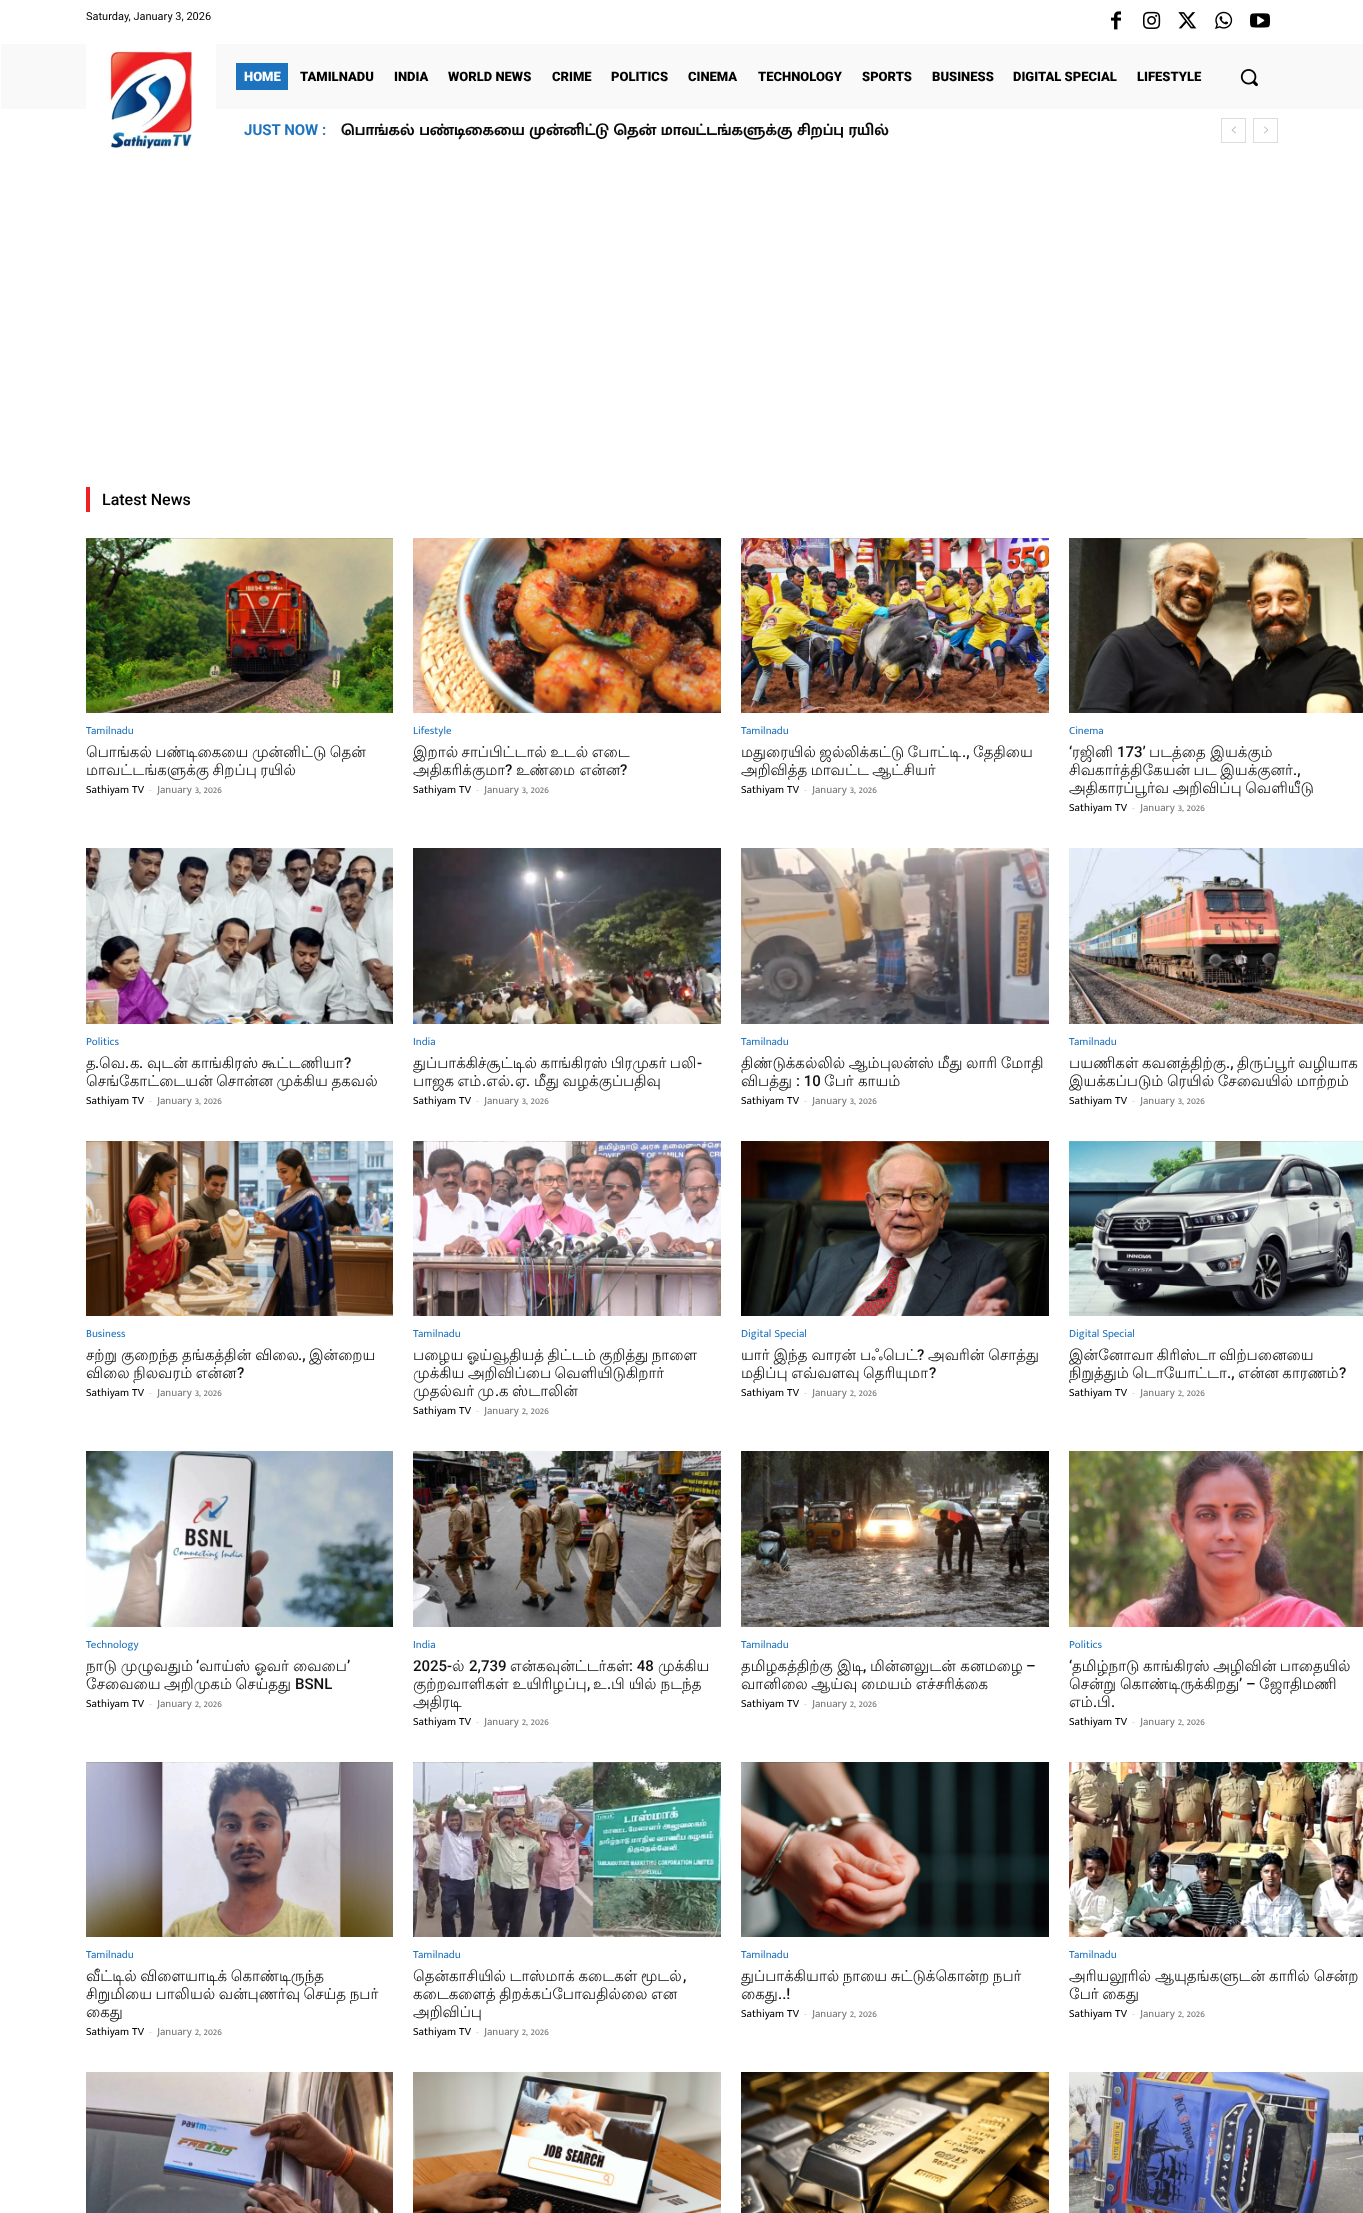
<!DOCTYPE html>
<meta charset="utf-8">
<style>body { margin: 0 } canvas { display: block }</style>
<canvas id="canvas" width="1363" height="2213"></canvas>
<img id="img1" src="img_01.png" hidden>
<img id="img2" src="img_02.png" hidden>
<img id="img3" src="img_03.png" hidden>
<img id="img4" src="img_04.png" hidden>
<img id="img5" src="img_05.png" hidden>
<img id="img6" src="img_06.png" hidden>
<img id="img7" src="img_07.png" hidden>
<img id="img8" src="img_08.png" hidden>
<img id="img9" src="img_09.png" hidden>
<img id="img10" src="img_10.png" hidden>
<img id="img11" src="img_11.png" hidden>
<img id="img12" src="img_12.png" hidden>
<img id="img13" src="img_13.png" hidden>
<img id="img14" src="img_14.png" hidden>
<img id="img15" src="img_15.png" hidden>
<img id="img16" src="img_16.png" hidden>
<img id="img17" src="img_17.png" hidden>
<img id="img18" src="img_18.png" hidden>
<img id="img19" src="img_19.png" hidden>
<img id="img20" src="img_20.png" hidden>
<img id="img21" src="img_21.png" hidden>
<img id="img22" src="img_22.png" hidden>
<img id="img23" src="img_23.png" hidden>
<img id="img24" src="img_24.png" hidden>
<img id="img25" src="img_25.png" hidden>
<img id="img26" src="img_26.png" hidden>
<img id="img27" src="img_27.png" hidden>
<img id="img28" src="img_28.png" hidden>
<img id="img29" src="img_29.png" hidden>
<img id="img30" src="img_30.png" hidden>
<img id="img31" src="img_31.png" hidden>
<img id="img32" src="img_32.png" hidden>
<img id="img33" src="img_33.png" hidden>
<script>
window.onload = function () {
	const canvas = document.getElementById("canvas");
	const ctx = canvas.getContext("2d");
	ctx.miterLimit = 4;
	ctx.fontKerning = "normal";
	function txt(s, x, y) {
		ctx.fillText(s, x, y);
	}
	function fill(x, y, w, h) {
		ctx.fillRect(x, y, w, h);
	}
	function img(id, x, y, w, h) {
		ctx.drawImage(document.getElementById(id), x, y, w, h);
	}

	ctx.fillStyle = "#FFFFFF";
	fill(0, 0, 1363, 2213);
	img("img1", 1111, 11, 10, 19);
	img("img2", 1143, 11, 18, 18);
	img("img3", 1178, 12, 19, 17);
	img("img4", 1215, 11, 18, 18);
	img("img5", 1250, 13, 20, 15);
	ctx.fillStyle = "#F9F9F9";
	fill(1, 44, 1362, 65);
	ctx.fillStyle = "#FFFFFF";
	fill(86, 44, 130, 65);
	img("img6", 106, 49, 87, 100);
	ctx.fillStyle = "#1E73BE";
	fill(236, 63, 52, 27);
	img("img7", 1240, 69, 18, 18);
	ctx.strokeStyle = "#DCDCDC";
	ctx.strokeRect(1221.5, 118.5, 24, 24);
	img("img8", 1231, 126, 5, 8);
	ctx.strokeRect(1253.5, 118.5, 24, 24);
	img("img9", 1264, 126, 5, 8);
	ctx.fillStyle = "#ED2124";
	fill(86, 487, 4, 25);
	img("img10", 86, 538, 307, 175);
	img("img11", 413, 538, 308, 175);
	img("img12", 741, 538, 308, 175);
	img("img13", 1069, 538, 294, 175);
	img("img14", 86, 848, 307, 176);
	img("img15", 413, 848, 308, 176);
	img("img16", 741, 848, 308, 176);
	img("img17", 1069, 848, 294, 176);
	img("img18", 86, 1141, 307, 175);
	img("img19", 413, 1141, 308, 175);
	img("img20", 741, 1141, 308, 175);
	img("img21", 1069, 1141, 294, 175);
	img("img22", 86, 1451, 307, 176);
	img("img23", 413, 1451, 308, 176);
	img("img24", 741, 1451, 308, 176);
	img("img25", 1069, 1451, 294, 176);
	img("img26", 86, 1762, 307, 175);
	img("img27", 413, 1762, 308, 175);
	img("img28", 741, 1762, 308, 175);
	img("img29", 1069, 1762, 294, 175);
	img("img30", 86, 2072, 307, 141);
	img("img31", 413, 2072, 308, 141);
	img("img32", 741, 2072, 308, 141);
	img("img33", 1069, 2072, 294, 141);
	ctx.font = "11px Roboto";
	ctx.fillStyle = "#000000";
	txt("Saturday, January 3, 2026", 86, 20);
	ctx.font = "900 13px Roboto";
	ctx.fillStyle = "#FFFFFF";
	txt("HOME", 244, 81);
	ctx.fillStyle = "#000000";
	txt("TAMILNADU", 300, 81);
	txt("INDIA", 394, 81);
	txt("WORLD NEWS", 448, 81);
	txt("CRIME", 552, 81);
	txt("POLITICS", 611, 81);
	txt("CINEMA", 688, 81);
	txt("TECHNOLOGY", 758, 81);
	txt("SPORTS", 862, 81);
	txt("BUSINESS", 932, 81);
	txt("DIGITAL SPECIAL", 1013, 81);
	txt("LIFESTYLE", 1137, 81);
	ctx.font = "bold 15px Roboto";
	ctx.fillStyle = "#1E73BE";
	txt("JUST NOW :", 244, 135);
	ctx.font = "bold 16px Mukta Malar";
	ctx.fillStyle = "#0A0A0A";
	txt("பொங்கல் பண்டிகையை முன்னிட்டு தென் மாவட்டங்களுக்கு சிறப்பு ரயில்", 341, 135);
	ctx.font = "500 16px Roboto";
	ctx.fillStyle = "#000000";
	txt("Latest News", 102, 505);
	ctx.font = "11px Mukta Malar";
	ctx.fillStyle = "#1E73BE";
	txt("Tamilnadu", 86, 734);
	ctx.wordSpacing = "-1px";
	ctx.font = "15px Lohit Tamil";
	ctx.fillStyle = "#111111";
	txt("பொங்கல் பண்டிகையை முன்னிட்டு தென்", 86, 757);
	txt("மாவட்டங்களுக்கு சிறப்பு ரயில்", 86, 775);
	ctx.wordSpacing = "0px";
	ctx.font = "11px Mukta Malar";
	ctx.fillStyle = "#000000";
	txt("Sathiyam TV", 86, 793);
	ctx.fillStyle = "#CCCCCC";
	txt("-", 149, 793);
	ctx.fillStyle = "#767676";
	txt("January 3, 2026", 157, 793);
	ctx.fillStyle = "#1E73BE";
	txt("Lifestyle", 413, 734);
	ctx.wordSpacing = "-1px";
	ctx.font = "15px Lohit Tamil";
	ctx.fillStyle = "#111111";
	txt("இறால் சாப்பிட்டால் உடல் எடை", 413, 757);
	ctx.wordSpacing = "0px";
	txt("அதிகரிக்குமா", 413, 775);
	ctx.font = "500 15px Roboto";
	txt("?", 505, 775);
	ctx.font = "15px Lohit Tamil";
	txt("உண்மை என்ன", 516, 775);
	ctx.font = "500 15px Roboto";
	txt("?", 620, 775);
	ctx.font = "11px Mukta Malar";
	ctx.fillStyle = "#000000";
	txt("Sathiyam TV", 413, 793);
	ctx.fillStyle = "#CCCCCC";
	txt("-", 476, 793);
	ctx.fillStyle = "#767676";
	txt("January 3, 2026", 484, 793);
	ctx.fillStyle = "#1E73BE";
	txt("Tamilnadu", 741, 734);
	ctx.wordSpacing = "-1px";
	ctx.font = "15px Lohit Tamil";
	ctx.fillStyle = "#111111";
	txt("மதுரையில் ஜல்லிக்கட்டு போட்டி", 741, 757);
	ctx.wordSpacing = "0px";
	ctx.font = "500 15px Roboto";
	txt(".,", 962, 757);
	ctx.font = "15px Lohit Tamil";
	txt("தேதியை", 973, 757);
	ctx.wordSpacing = "-1px";
	txt("அறிவித்த மாவட்ட ஆட்சியர்", 741, 775);
	ctx.wordSpacing = "0px";
	ctx.font = "11px Mukta Malar";
	ctx.fillStyle = "#000000";
	txt("Sathiyam TV", 741, 793);
	ctx.fillStyle = "#CCCCCC";
	txt("-", 804, 793);
	ctx.fillStyle = "#767676";
	txt("January 3, 2026", 812, 793);
	ctx.fillStyle = "#1E73BE";
	txt("Cinema", 1069, 734);
	ctx.font = "500 15px Roboto";
	ctx.fillStyle = "#111111";
	txt("‘", 1069, 757);
	ctx.font = "15px Lohit Tamil";
	txt("ரஜினி", 1072, 757);
	ctx.font = "500 15px Roboto";
	txt("173’", 1117, 757);
	ctx.font = "15px Lohit Tamil";
	txt("படத்தை இயக்கும்", 1149, 757);
	ctx.wordSpacing = "-1px";
	txt("சிவகார்த்திகேயன் பட இயக்குனர்", 1069, 775);
	ctx.wordSpacing = "0px";
	ctx.font = "500 15px Roboto";
	txt(".,", 1293, 775);
	ctx.wordSpacing = "-1px";
	ctx.font = "15px Lohit Tamil";
	txt("அதிகாரப்பூர்வ அறிவிப்பு வெளியீடு", 1069, 793);
	ctx.wordSpacing = "0px";
	ctx.font = "11px Mukta Malar";
	ctx.fillStyle = "#000000";
	txt("Sathiyam TV", 1069, 811);
	ctx.fillStyle = "#CCCCCC";
	txt("-", 1132, 811);
	ctx.fillStyle = "#767676";
	txt("January 3, 2026", 1140, 811);
	ctx.fillStyle = "#1E73BE";
	txt("Politics", 86, 1045);
	ctx.font = "15px Lohit Tamil";
	ctx.fillStyle = "#111111";
	txt("த", 86, 1068);
	ctx.font = "500 15px Roboto";
	txt(".", 95, 1068);
	ctx.font = "15px Lohit Tamil";
	txt("வெ", 99, 1068);
	ctx.font = "500 15px Roboto";
	txt(".", 125, 1068);
	ctx.font = "15px Lohit Tamil";
	txt("க", 130, 1068);
	ctx.font = "500 15px Roboto";
	txt(".", 139, 1068);
	ctx.wordSpacing = "-1px";
	ctx.font = "15px Lohit Tamil";
	txt("வுடன் காங்கிரஸ் கூட்டணியா", 147, 1068);
	ctx.wordSpacing = "0px";
	ctx.font = "500 15px Roboto";
	txt("?", 344, 1068);
	ctx.wordSpacing = "-1px";
	ctx.font = "15px Lohit Tamil";
	txt("செங்கோட்டையன் சொன்ன முக்கிய தகவல்", 86, 1086);
	ctx.wordSpacing = "0px";
	ctx.font = "11px Mukta Malar";
	ctx.fillStyle = "#000000";
	txt("Sathiyam TV", 86, 1104);
	ctx.fillStyle = "#CCCCCC";
	txt("-", 149, 1104);
	ctx.fillStyle = "#767676";
	txt("January 3, 2026", 157, 1104);
	ctx.fillStyle = "#1E73BE";
	txt("India", 413, 1045);
	ctx.wordSpacing = "-1px";
	ctx.font = "15px Lohit Tamil";
	ctx.fillStyle = "#111111";
	txt("துப்பாக்கிச்சூட்டில் காங்கிரஸ் பிரமுகர் பலி", 413, 1068);
	ctx.wordSpacing = "0px";
	ctx.font = "500 15px Roboto";
	txt("-", 697, 1068);
	ctx.wordSpacing = "-1px";
	ctx.font = "15px Lohit Tamil";
	txt("பாஜக எம்", 413, 1086);
	ctx.wordSpacing = "0px";
	ctx.font = "500 15px Roboto";
	txt(".", 482, 1086);
	ctx.font = "15px Lohit Tamil";
	txt("எல்", 486, 1086);
	ctx.font = "500 15px Roboto";
	txt(".", 510, 1086);
	ctx.font = "15px Lohit Tamil";
	txt("ஏ", 515, 1086);
	ctx.font = "500 15px Roboto";
	txt(".", 526, 1086);
	ctx.wordSpacing = "-1px";
	ctx.font = "15px Lohit Tamil";
	txt("மீது வழக்குப்பதிவு", 534, 1086);
	ctx.wordSpacing = "0px";
	ctx.font = "11px Mukta Malar";
	ctx.fillStyle = "#000000";
	txt("Sathiyam TV", 413, 1104);
	ctx.fillStyle = "#CCCCCC";
	txt("-", 476, 1104);
	ctx.fillStyle = "#767676";
	txt("January 3, 2026", 484, 1104);
	ctx.fillStyle = "#1E73BE";
	txt("Tamilnadu", 741, 1045);
	ctx.wordSpacing = "-1px";
	ctx.font = "15px Lohit Tamil";
	ctx.fillStyle = "#111111";
	txt("திண்டுக்கல்லில் ஆம்புலன்ஸ் மீது லாரி மோதி", 741, 1068);
	ctx.wordSpacing = "0px";
	txt("விபத்து", 741, 1086);
	ctx.font = "500 15px Roboto";
	txt(": 10", 796, 1086);
	ctx.font = "15px Lohit Tamil";
	txt("பேர்", 824, 1086);
	txt("காயம்", 858, 1086);
	ctx.font = "11px Mukta Malar";
	ctx.fillStyle = "#000000";
	txt("Sathiyam TV", 741, 1104);
	ctx.fillStyle = "#CCCCCC";
	txt("-", 804, 1104);
	ctx.fillStyle = "#767676";
	txt("January 3, 2026", 812, 1104);
	ctx.fillStyle = "#1E73BE";
	txt("Tamilnadu", 1069, 1045);
	ctx.wordSpacing = "-1px";
	ctx.font = "15px Lohit Tamil";
	ctx.fillStyle = "#111111";
	txt("பயணிகள் கவனத்திற்கு", 1069, 1068);
	ctx.wordSpacing = "0px";
	ctx.font = "500 15px Roboto";
	txt(".,", 1226, 1068);
	ctx.wordSpacing = "-1px";
	ctx.font = "15px Lohit Tamil";
	txt("திருப்பூர் வழியாக", 1237, 1068);
	txt("இயக்கப்படும் ரெயில் சேவையில் மாற்றம்", 1069, 1086);
	ctx.wordSpacing = "0px";
	ctx.font = "11px Mukta Malar";
	ctx.fillStyle = "#000000";
	txt("Sathiyam TV", 1069, 1104);
	ctx.fillStyle = "#CCCCCC";
	txt("-", 1132, 1104);
	ctx.fillStyle = "#767676";
	txt("January 3, 2026", 1140, 1104);
	ctx.fillStyle = "#1E73BE";
	txt("Business", 86, 1337);
	ctx.wordSpacing = "-0.5px";
	ctx.font = "15px Lohit Tamil";
	ctx.fillStyle = "#111111";
	txt("சற்று குறைந்த தங்கத்தின் விலை", 86, 1360);
	ctx.wordSpacing = "0px";
	ctx.font = "500 15px Roboto";
	txt(".,", 298, 1360);
	ctx.font = "15px Lohit Tamil";
	txt("இன்றைய", 309, 1360);
	ctx.wordSpacing = "-1px";
	txt("விலை நிலவரம் என்ன", 86, 1378);
	ctx.wordSpacing = "0px";
	ctx.font = "500 15px Roboto";
	txt("?", 237, 1378);
	ctx.font = "11px Mukta Malar";
	ctx.fillStyle = "#000000";
	txt("Sathiyam TV", 86, 1396);
	ctx.fillStyle = "#CCCCCC";
	txt("-", 149, 1396);
	ctx.fillStyle = "#767676";
	txt("January 3, 2026", 157, 1396);
	ctx.fillStyle = "#1E73BE";
	txt("Tamilnadu", 413, 1337);
	ctx.wordSpacing = "-1px";
	ctx.font = "15px Lohit Tamil";
	ctx.fillStyle = "#111111";
	txt("பழைய ஓய்வூதியத் திட்டம் குறித்து நாளை", 413, 1360);
	txt("முக்கிய அறிவிப்பை வெளியிடுகிறார்", 413, 1378);
	txt("முதல்வர் மு", 413, 1396);
	ctx.wordSpacing = "0px";
	ctx.font = "500 15px Roboto";
	txt(".", 495, 1396);
	ctx.wordSpacing = "-1px";
	ctx.font = "15px Lohit Tamil";
	txt("க ஸ்டாலின்", 499, 1396);
	ctx.wordSpacing = "0px";
	ctx.font = "11px Mukta Malar";
	ctx.fillStyle = "#000000";
	txt("Sathiyam TV", 413, 1414);
	ctx.fillStyle = "#CCCCCC";
	txt("-", 476, 1414);
	ctx.fillStyle = "#767676";
	txt("January 2, 2026", 484, 1414);
	ctx.fillStyle = "#1E73BE";
	txt("Digital Special", 741, 1337);
	ctx.wordSpacing = "-0.5px";
	ctx.font = "15px Lohit Tamil";
	ctx.fillStyle = "#111111";
	txt("யார் இந்த வாரன் பஃபெட்", 741, 1360);
	ctx.wordSpacing = "0px";
	ctx.font = "500 15px Roboto";
	txt("?", 917, 1360);
	ctx.wordSpacing = "-0.5px";
	ctx.font = "15px Lohit Tamil";
	txt("அவரின் சொத்து", 928, 1360);
	ctx.wordSpacing = "-1px";
	txt("மதிப்பு எவ்வளவு தெரியுமா", 741, 1378);
	ctx.wordSpacing = "0px";
	ctx.font = "500 15px Roboto";
	txt("?", 929, 1378);
	ctx.font = "11px Mukta Malar";
	ctx.fillStyle = "#000000";
	txt("Sathiyam TV", 741, 1396);
	ctx.fillStyle = "#CCCCCC";
	txt("-", 804, 1396);
	ctx.fillStyle = "#767676";
	txt("January 2, 2026", 812, 1396);
	ctx.fillStyle = "#1E73BE";
	txt("Digital Special", 1069, 1337);
	ctx.wordSpacing = "-1px";
	ctx.font = "15px Lohit Tamil";
	ctx.fillStyle = "#111111";
	txt("இன்னோவா கிரிஸ்டா விற்பனையை", 1069, 1360);
	txt("நிறுத்தும் டொயோட்டா", 1069, 1378);
	ctx.wordSpacing = "0px";
	ctx.font = "500 15px Roboto";
	txt(".,", 1227, 1378);
	ctx.wordSpacing = "-1px";
	ctx.font = "15px Lohit Tamil";
	txt("என்ன காரணம்", 1238, 1378);
	ctx.wordSpacing = "0px";
	ctx.font = "500 15px Roboto";
	txt("?", 1339, 1378);
	ctx.font = "11px Mukta Malar";
	ctx.fillStyle = "#000000";
	txt("Sathiyam TV", 1069, 1396);
	ctx.fillStyle = "#CCCCCC";
	txt("-", 1132, 1396);
	ctx.fillStyle = "#767676";
	txt("January 2, 2026", 1140, 1396);
	ctx.fillStyle = "#1E73BE";
	txt("Technology", 86, 1648);
	ctx.wordSpacing = "-0.5px";
	ctx.font = "15px Lohit Tamil";
	ctx.fillStyle = "#111111";
	txt("நாடு முழுவதும்", 86, 1671);
	ctx.wordSpacing = "0px";
	ctx.font = "500 15px Roboto";
	txt("‘", 196, 1671);
	ctx.wordSpacing = "-0.5px";
	ctx.font = "15px Lohit Tamil";
	txt("வாய்ஸ் ஓவர் வைபை", 199, 1671);
	ctx.wordSpacing = "0px";
	ctx.font = "500 15px Roboto";
	txt("’", 347, 1671);
	ctx.wordSpacing = "-1px";
	ctx.font = "15px Lohit Tamil";
	txt("சேவையை அறிமுகம் செய்தது", 86, 1689);
	ctx.wordSpacing = "0px";
	ctx.font = "500 15px Roboto";
	txt("BSNL", 295, 1689);
	ctx.font = "11px Mukta Malar";
	ctx.fillStyle = "#000000";
	txt("Sathiyam TV", 86, 1707);
	ctx.fillStyle = "#CCCCCC";
	txt("-", 149, 1707);
	ctx.fillStyle = "#767676";
	txt("January 2, 2026", 157, 1707);
	ctx.fillStyle = "#1E73BE";
	txt("India", 413, 1648);
	ctx.font = "500 15px Roboto";
	ctx.fillStyle = "#111111";
	txt("2025-", 413, 1671);
	ctx.font = "15px Lohit Tamil";
	txt("ல்", 452, 1671);
	ctx.font = "500 15px Roboto";
	txt("2,739", 469, 1671);
	ctx.font = "15px Lohit Tamil";
	txt("என்கவுன்ட்டர்கள்", 510, 1671);
	ctx.font = "500 15px Roboto";
	txt(": 48", 629, 1671);
	ctx.font = "15px Lohit Tamil";
	txt("முக்கிய", 658, 1671);
	ctx.wordSpacing = "-0.5px";
	txt("குற்றவாளிகள் உயிரிழப்பு", 413, 1689);
	ctx.wordSpacing = "0px";
	txt("உ", 593, 1689);
	ctx.wordSpacing = "-0.5px";
	txt("பி யில் நடந்த", 611, 1689);
	ctx.wordSpacing = "0px";
	ctx.font = "500 15px Roboto";
	txt(",", 587, 1689);
	txt(".", 607, 1689);
	ctx.font = "15px Lohit Tamil";
	txt("அதிரடி", 413, 1707);
	ctx.font = "11px Mukta Malar";
	ctx.fillStyle = "#000000";
	txt("Sathiyam TV", 413, 1725);
	ctx.fillStyle = "#CCCCCC";
	txt("-", 476, 1725);
	ctx.fillStyle = "#767676";
	txt("January 2, 2026", 484, 1725);
	ctx.fillStyle = "#1E73BE";
	txt("Tamilnadu", 741, 1648);
	ctx.font = "15px Lohit Tamil";
	ctx.fillStyle = "#111111";
	txt("தமிழகத்திற்கு இடி", 741, 1671);
	txt("மின்னலுடன் கனமழை", 870, 1671);
	ctx.font = "500 15px Roboto";
	txt("–", 1026, 1671);
	txt(",", 863, 1671);
	ctx.wordSpacing = "-1px";
	ctx.font = "15px Lohit Tamil";
	txt("வானிலை ஆய்வு மையம் எச்சரிக்கை", 741, 1689);
	ctx.wordSpacing = "0px";
	ctx.font = "11px Mukta Malar";
	ctx.fillStyle = "#000000";
	txt("Sathiyam TV", 741, 1707);
	ctx.fillStyle = "#CCCCCC";
	txt("-", 804, 1707);
	ctx.fillStyle = "#767676";
	txt("January 2, 2026", 812, 1707);
	ctx.fillStyle = "#1E73BE";
	txt("Politics", 1069, 1648);
	ctx.font = "500 15px Roboto";
	ctx.fillStyle = "#111111";
	txt("‘", 1069, 1671);
	ctx.wordSpacing = "-1px";
	ctx.font = "15px Lohit Tamil";
	txt("தமிழ்நாடு காங்கிரஸ் அழிவின் பாதையில்", 1072, 1671);
	ctx.wordSpacing = "0px";
	txt("சென்று", 1069, 1689);
	txt("கொண்டிருக்கிறது", 1120, 1689);
	ctx.font = "500 15px Roboto";
	txt("’ –", 1239, 1689);
	ctx.font = "15px Lohit Tamil";
	txt("ஜோதிமணி", 1259, 1689);
	txt("எம்", 1069, 1707);
	ctx.font = "500 15px Roboto";
	txt(".", 1093, 1707);
	ctx.font = "15px Lohit Tamil";
	txt("பி", 1097, 1707);
	ctx.font = "500 15px Roboto";
	txt(".", 1111, 1707);
	ctx.font = "11px Mukta Malar";
	ctx.fillStyle = "#000000";
	txt("Sathiyam TV", 1069, 1725);
	ctx.fillStyle = "#CCCCCC";
	txt("-", 1132, 1725);
	ctx.fillStyle = "#767676";
	txt("January 2, 2026", 1140, 1725);
	ctx.fillStyle = "#1E73BE";
	txt("Tamilnadu", 86, 1958);
	ctx.wordSpacing = "-1px";
	ctx.font = "15px Lohit Tamil";
	ctx.fillStyle = "#111111";
	txt("வீட்டில் விளையாடிக் கொண்டிருந்த", 86, 1981);
	txt("சிறுமியை பாலியல் வன்புணர்வு செய்த நபர்", 86, 1999);
	ctx.wordSpacing = "0px";
	txt("கைது", 86, 2017);
	ctx.font = "11px Mukta Malar";
	ctx.fillStyle = "#000000";
	txt("Sathiyam TV", 86, 2035);
	ctx.fillStyle = "#CCCCCC";
	txt("-", 149, 2035);
	ctx.fillStyle = "#767676";
	txt("January 2, 2026", 157, 2035);
	ctx.fillStyle = "#1E73BE";
	txt("Tamilnadu", 413, 1958);
	ctx.wordSpacing = "-1px";
	ctx.font = "15px Lohit Tamil";
	ctx.fillStyle = "#111111";
	txt("தென்காசியில் டாஸ்மாக் கடைகள் மூடல்", 413, 1981);
	ctx.wordSpacing = "0px";
	ctx.font = "500 15px Roboto";
	txt(",", 683, 1981);
	ctx.wordSpacing = "-1px";
	ctx.font = "15px Lohit Tamil";
	txt("கடைகளைத் திறக்கப்போவதில்லை என", 413, 1999);
	ctx.wordSpacing = "0px";
	txt("அறிவிப்பு", 413, 2017);
	ctx.font = "11px Mukta Malar";
	ctx.fillStyle = "#000000";
	txt("Sathiyam TV", 413, 2035);
	ctx.fillStyle = "#CCCCCC";
	txt("-", 476, 2035);
	ctx.fillStyle = "#767676";
	txt("January 2, 2026", 484, 2035);
	ctx.fillStyle = "#1E73BE";
	txt("Tamilnadu", 741, 1958);
	ctx.wordSpacing = "-1px";
	ctx.font = "15px Lohit Tamil";
	ctx.fillStyle = "#111111";
	txt("துப்பாக்கியால் நாயை சுட்டுக்கொன்ற நபர்", 741, 1981);
	ctx.wordSpacing = "0px";
	txt("கைது", 741, 1999);
	ctx.font = "500 15px Roboto";
	txt("..!", 778, 1999);
	ctx.font = "11px Mukta Malar";
	ctx.fillStyle = "#000000";
	txt("Sathiyam TV", 741, 2017);
	ctx.fillStyle = "#CCCCCC";
	txt("-", 804, 2017);
	ctx.fillStyle = "#767676";
	txt("January 2, 2026", 812, 2017);
	ctx.fillStyle = "#1E73BE";
	txt("Tamilnadu", 1069, 1958);
	ctx.wordSpacing = "-0.5px";
	ctx.font = "15px Lohit Tamil";
	ctx.fillStyle = "#111111";
	txt("அரியலூரில் ஆயுதங்களுடன் காரில் சென்ற", 1069, 1981);
	ctx.wordSpacing = "-1px";
	txt("பேர் கைது", 1069, 1999);
	ctx.wordSpacing = "0px";
	ctx.font = "11px Mukta Malar";
	ctx.fillStyle = "#000000";
	txt("Sathiyam TV", 1069, 2017);
	ctx.fillStyle = "#CCCCCC";
	txt("-", 1132, 2017);
	ctx.fillStyle = "#767676";
	txt("January 2, 2026", 1140, 2017);
};
</script>
